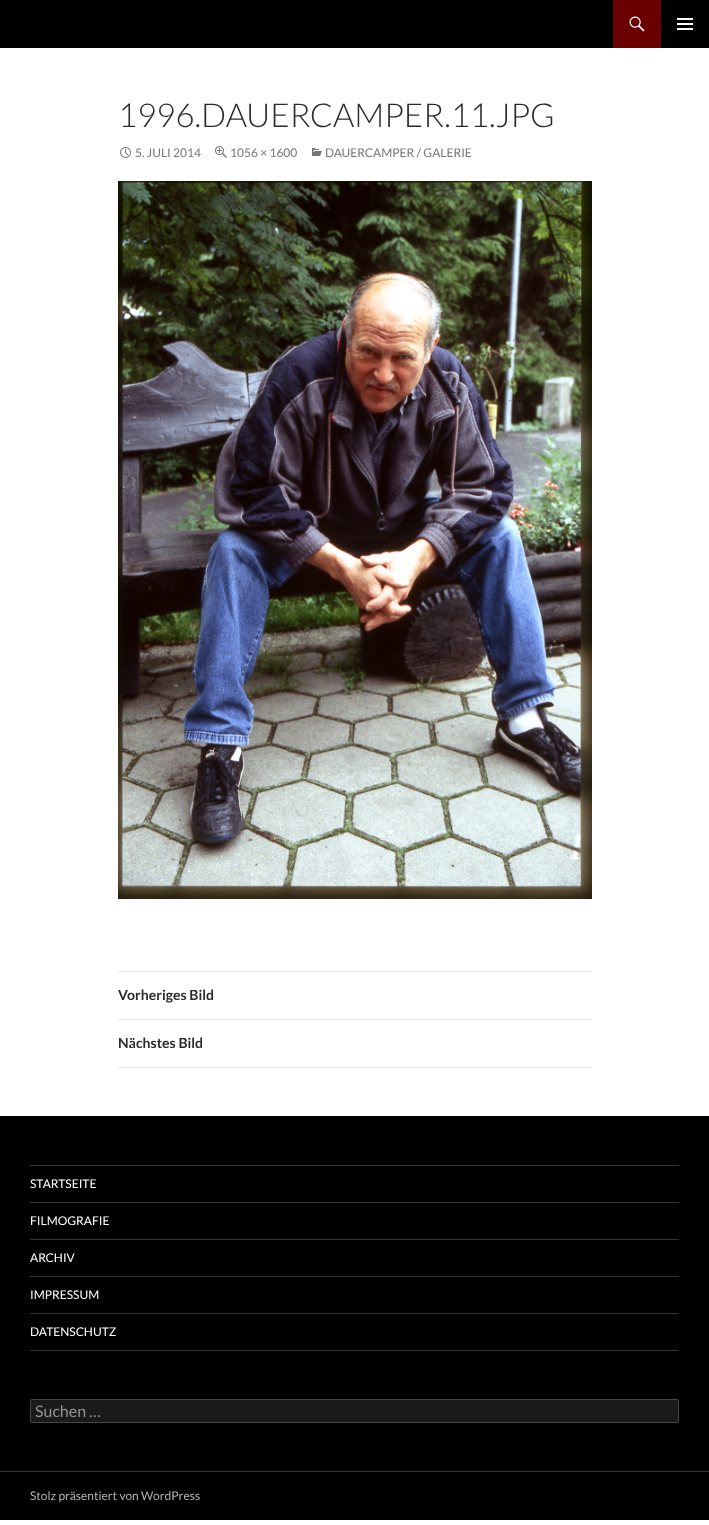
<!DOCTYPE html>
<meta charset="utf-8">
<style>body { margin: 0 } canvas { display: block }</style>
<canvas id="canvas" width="709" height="1525"></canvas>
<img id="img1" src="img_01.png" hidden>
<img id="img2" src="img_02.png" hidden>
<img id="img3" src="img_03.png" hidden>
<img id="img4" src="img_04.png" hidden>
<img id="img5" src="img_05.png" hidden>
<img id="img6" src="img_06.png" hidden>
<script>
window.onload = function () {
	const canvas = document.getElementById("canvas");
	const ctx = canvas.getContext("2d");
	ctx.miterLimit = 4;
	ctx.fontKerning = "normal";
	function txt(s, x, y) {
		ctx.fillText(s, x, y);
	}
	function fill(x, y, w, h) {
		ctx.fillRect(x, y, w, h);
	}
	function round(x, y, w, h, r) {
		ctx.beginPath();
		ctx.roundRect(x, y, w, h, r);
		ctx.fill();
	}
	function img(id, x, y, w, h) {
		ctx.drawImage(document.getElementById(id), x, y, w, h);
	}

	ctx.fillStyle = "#FFFFFF";
	fill(0, 0, 709, 1525);
	ctx.fillStyle = "#000000";
	fill(0, 0, 709, 48);
	ctx.fillStyle = "#690101";
	fill(613, 0, 48, 48);
	img("img1", 629, 16, 16, 16);
	img("img2", 677, 18, 16, 12);
	img("img3", 120, 147, 11, 11);
	img("img4", 215, 146, 12, 12);
	img("img5", 312, 148, 10, 8);
	img("img6", 118, 181, 474, 718);
	ctx.fillStyle = "#E6E6E6";
	fill(118, 971, 474, 1);
	fill(118, 1019, 474, 1);
	fill(118, 1067, 474, 1);
	ctx.fillStyle = "#000000";
	fill(0, 1116, 709, 355);
	ctx.fillStyle = "#333333";
	fill(0, 1471, 709, 1);
	fill(30, 1350, 649, 1);
	fill(30, 1165, 649, 1);
	fill(30, 1202, 649, 1);
	fill(30, 1239, 649, 1);
	fill(30, 1276, 649, 1);
	fill(30, 1313, 649, 1);
	ctx.fillStyle = "#1A1A1A";
	round(30, 1399, 649, 24, 2);
	ctx.beginPath();
	ctx.roundRect(30.5, 1399.5, 648, 23, 1.5);
	ctx.strokeStyle = "rgba(255, 255, 255, 0.2)";
	ctx.stroke();
	ctx.fillStyle = "#000000";
	fill(0, 1472, 709, 48);
	ctx.font = "300 33px Lato";
	ctx.fillStyle = "#2B2B2B";
	txt("1996.DAUERCAMPER.11.JPG", 118, 127);
	ctx.font = "12px Lato";
	ctx.fillStyle = "#767676";
	txt("5. JULI 2014", 135, 157);
	txt("1056 × 1600", 230, 157);
	txt("DAUERCAMPER / GALERIE", 325, 157);
	ctx.font = "bold 14px Lato";
	ctx.fillStyle = "#2B2B2B";
	txt("Vorheriges Bild", 118, 1000);
	txt("Nächstes Bild", 118, 1048);
	ctx.font = "12px Lato";
	ctx.fillStyle = "#FFFFFF";
	txt("STARTSEITE", 30, 1188);
	txt("FILMOGRAFIE", 30, 1225);
	txt("ARCHIV", 30, 1262);
	txt("IMPRESSUM", 30, 1299);
	txt("DATENSCHUTZ", 30, 1336);
	ctx.font = "16px Lato";
	ctx.fillStyle = "#939393";
	txt("Suchen …", 35, 1417);
	ctx.font = "12px Lato";
	ctx.fillStyle = "#B3B3B3";
	txt("Stolz präsentiert von WordPress", 30, 1500);
};
</script>
